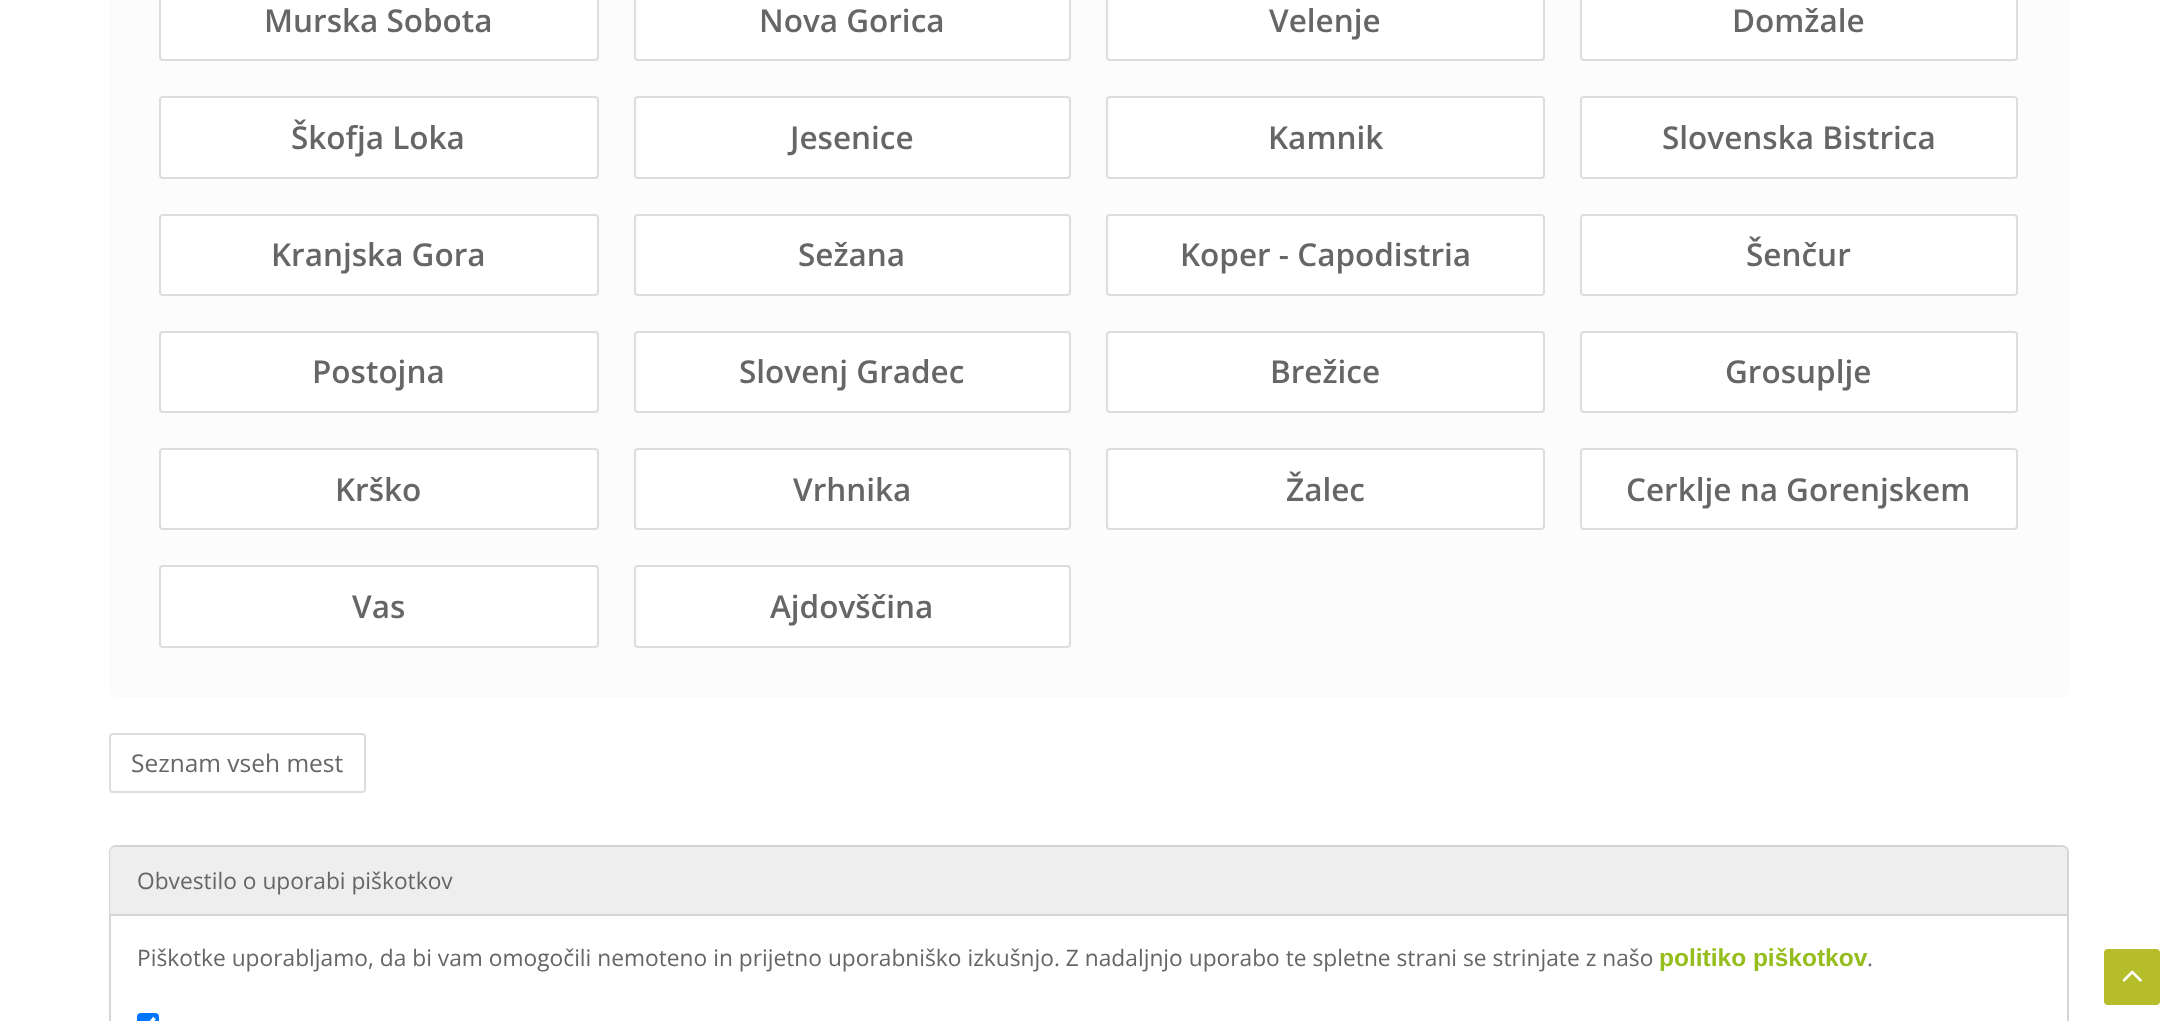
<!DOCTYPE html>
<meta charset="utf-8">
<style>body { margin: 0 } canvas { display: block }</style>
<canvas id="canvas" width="2177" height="1021"></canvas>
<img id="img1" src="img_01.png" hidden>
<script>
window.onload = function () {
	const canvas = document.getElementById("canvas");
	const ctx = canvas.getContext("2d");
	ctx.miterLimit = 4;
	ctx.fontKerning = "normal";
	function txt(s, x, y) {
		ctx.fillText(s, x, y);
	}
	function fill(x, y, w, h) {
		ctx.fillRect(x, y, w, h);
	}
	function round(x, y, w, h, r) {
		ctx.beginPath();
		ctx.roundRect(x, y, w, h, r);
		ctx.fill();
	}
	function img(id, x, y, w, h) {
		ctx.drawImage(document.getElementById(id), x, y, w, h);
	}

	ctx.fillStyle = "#FFFFFF";
	fill(0, 0, 2177, 1021);
	ctx.fillStyle = "#FCFCFC";
	round(109, -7, 1960, 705, 7);
	ctx.fillStyle = "#FFFFFF";
	ctx.beginPath();
	ctx.roundRect(160, -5, 438, 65, 3);
	ctx.fill();
	ctx.strokeStyle = "#DDDDDD";
	ctx.lineWidth = 2;
	ctx.stroke();
	ctx.beginPath();
	ctx.roundRect(635, -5, 435, 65, 3);
	ctx.fill();
	ctx.stroke();
	ctx.beginPath();
	ctx.roundRect(1107, -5, 437, 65, 3);
	ctx.fill();
	ctx.stroke();
	ctx.beginPath();
	ctx.roundRect(1581, -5, 436, 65, 3);
	ctx.fill();
	ctx.stroke();
	ctx.beginPath();
	ctx.roundRect(160, 97, 438, 81, 3);
	ctx.fill();
	ctx.stroke();
	ctx.beginPath();
	ctx.roundRect(635, 97, 435, 81, 3);
	ctx.fill();
	ctx.stroke();
	ctx.beginPath();
	ctx.roundRect(1107, 97, 437, 81, 3);
	ctx.fill();
	ctx.stroke();
	ctx.beginPath();
	ctx.roundRect(1581, 97, 436, 81, 3);
	ctx.fill();
	ctx.stroke();
	ctx.beginPath();
	ctx.roundRect(160, 215, 438, 80, 3);
	ctx.fill();
	ctx.stroke();
	ctx.beginPath();
	ctx.roundRect(635, 215, 435, 80, 3);
	ctx.fill();
	ctx.stroke();
	ctx.beginPath();
	ctx.roundRect(1107, 215, 437, 80, 3);
	ctx.fill();
	ctx.stroke();
	ctx.beginPath();
	ctx.roundRect(1581, 215, 436, 80, 3);
	ctx.fill();
	ctx.stroke();
	ctx.beginPath();
	ctx.roundRect(160, 332, 438, 80, 3);
	ctx.fill();
	ctx.stroke();
	ctx.beginPath();
	ctx.roundRect(635, 332, 435, 80, 3);
	ctx.fill();
	ctx.stroke();
	ctx.beginPath();
	ctx.roundRect(1107, 332, 437, 80, 3);
	ctx.fill();
	ctx.stroke();
	ctx.beginPath();
	ctx.roundRect(1581, 332, 436, 80, 3);
	ctx.fill();
	ctx.stroke();
	ctx.beginPath();
	ctx.roundRect(160, 449, 438, 80, 3);
	ctx.fill();
	ctx.stroke();
	ctx.beginPath();
	ctx.roundRect(635, 449, 435, 80, 3);
	ctx.fill();
	ctx.stroke();
	ctx.beginPath();
	ctx.roundRect(1107, 449, 437, 80, 3);
	ctx.fill();
	ctx.stroke();
	ctx.beginPath();
	ctx.roundRect(1581, 449, 436, 80, 3);
	ctx.fill();
	ctx.stroke();
	ctx.beginPath();
	ctx.roundRect(160, 566, 438, 81, 3);
	ctx.fill();
	ctx.stroke();
	ctx.beginPath();
	ctx.roundRect(635, 566, 435, 81, 3);
	ctx.fill();
	ctx.stroke();
	ctx.beginPath();
	ctx.roundRect(110, 734, 255, 58, 3);
	ctx.stroke();
	ctx.beginPath();
	ctx.roundRect(110, 846, 1958, 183, 6);
	ctx.strokeStyle = "#D5D5D5";
	ctx.stroke();
	ctx.fillStyle = "#EEEEEE";
	ctx.beginPath();
	ctx.roundRect(110, 847, 1957, 68, [5, 5, 0, 0]);
	ctx.fill();
	ctx.fillStyle = "#D5D5D5";
	fill(110, 914, 1957, 2);
	ctx.fillStyle = "#0075FF";
	round(137, 1013, 22, 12, 4);
	ctx.beginPath();
	ctx.moveTo(141, 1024.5);
	ctx.lineTo(145.5, 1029);
	ctx.lineTo(154.5, 1018);
	ctx.strokeStyle = "#FFFFFF";
	ctx.lineWidth = 3.6;
	ctx.stroke();
	ctx.fillStyle = "#B6BD2A";
	round(2104, 949, 56, 56, 4);
	img("img1", 2122, 970, 20, 12);
	ctx.font = "600 31.5px Open Sans";
	ctx.fillStyle = "#666666";
	txt("Murska Sobota", 264, 32);
	txt("Nova Gorica", 759, 32);
	txt("Velenje", 1269, 32);
	txt("Domžale", 1732, 32);
	txt("Škofja Loka", 291, 149);
	txt("Jesenice", 790, 149);
	txt("Kamnik", 1268, 149);
	txt("Slovenska Bistrica", 1662, 149);
	txt("Kranjska Gora", 271, 266);
	txt("Sežana", 798, 266);
	txt("Koper - Capodistria", 1180, 266);
	txt("Šenčur", 1746, 266);
	txt("Postojna", 312, 383);
	txt("Slovenj Gradec", 739, 383);
	txt("Brežice", 1270, 383);
	txt("Grosuplje", 1725, 383);
	txt("Krško", 335, 501);
	txt("Vrhnika", 793, 501);
	txt("Žalec", 1286, 501);
	txt("Cerklje na Gorenjskem", 1626, 501);
	txt("Vas", 352, 618);
	txt("Ajdovščina", 770, 618);
	ctx.font = "24.5px Open Sans";
	txt("Seznam vseh mest", 131, 772);
	ctx.font = "22.75px Open Sans";
	txt("Obvestilo o uporabi piškotkov", 137, 889);
	txt("Piškotke uporabljamo, da bi vam omogočili nemoteno in prijetno uporabniško izkušnjo. Z nadaljnjo uporabo te spletne strani se strinjate z našo", 137, 966);
	ctx.font = "bold 24.5px Liberation Sans";
	ctx.fillStyle = "#96BD1E";
	txt("politiko piškotkov", 1659, 966);
	ctx.font = "22.75px Open Sans";
	ctx.fillStyle = "#666666";
	txt(".", 1867, 966);
};
</script>
